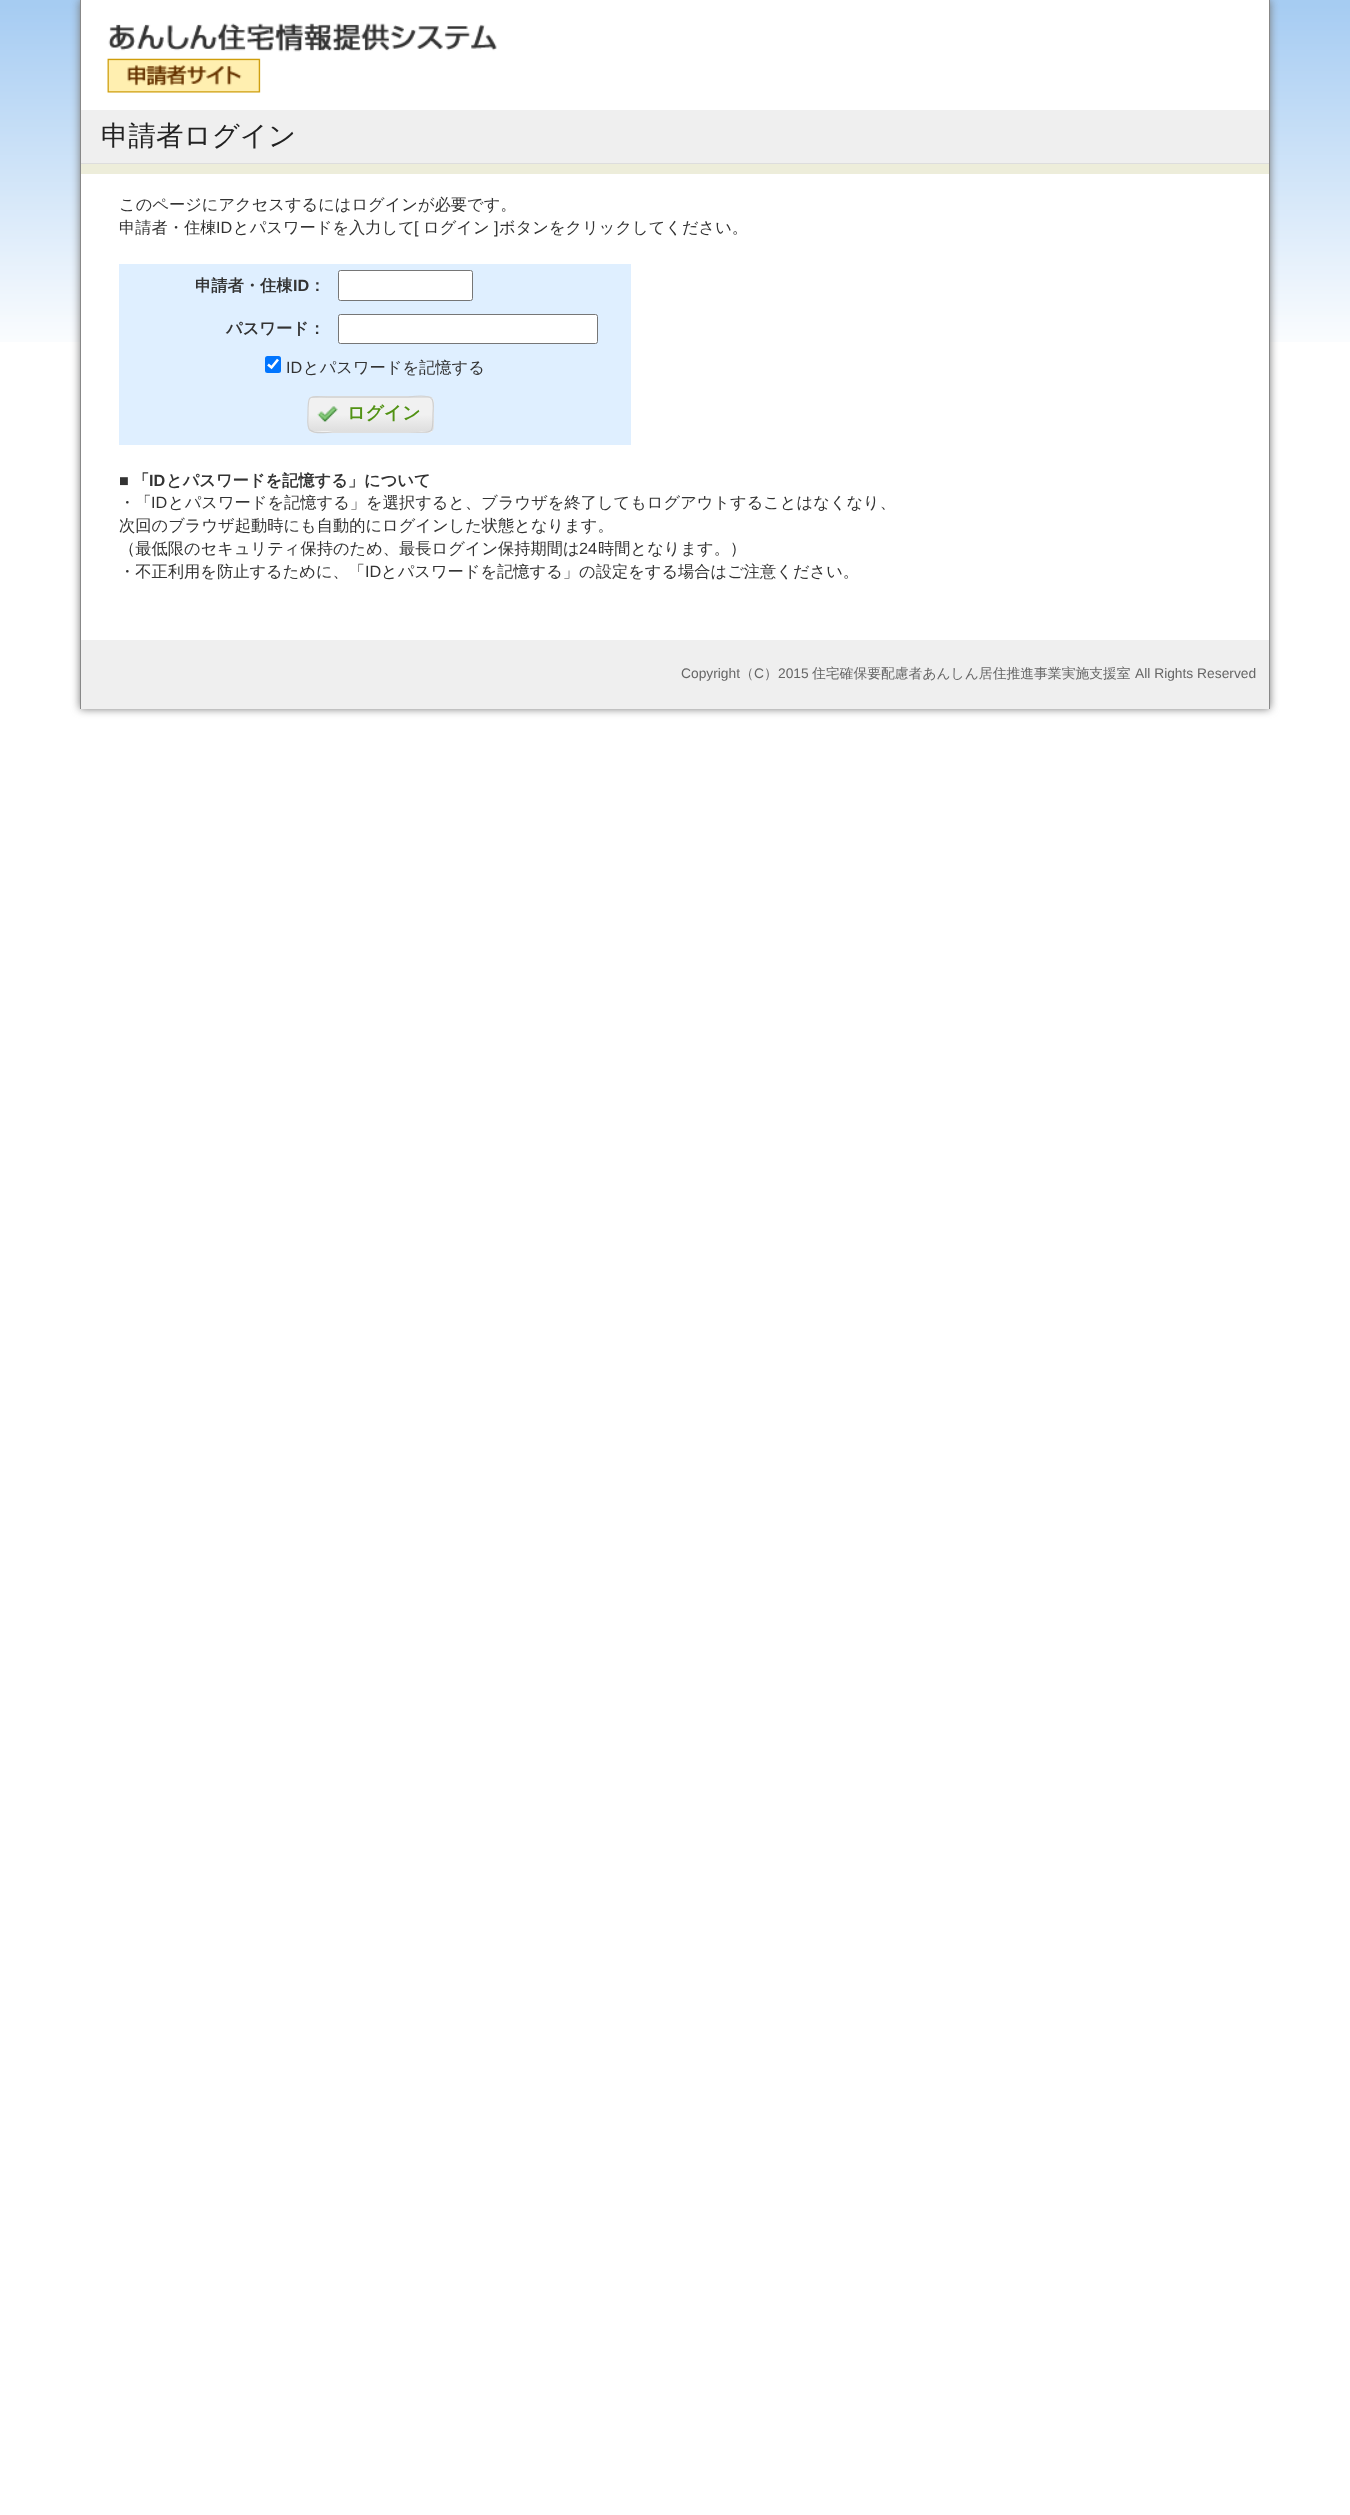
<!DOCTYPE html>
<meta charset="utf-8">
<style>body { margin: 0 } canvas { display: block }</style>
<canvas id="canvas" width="1350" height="2515"></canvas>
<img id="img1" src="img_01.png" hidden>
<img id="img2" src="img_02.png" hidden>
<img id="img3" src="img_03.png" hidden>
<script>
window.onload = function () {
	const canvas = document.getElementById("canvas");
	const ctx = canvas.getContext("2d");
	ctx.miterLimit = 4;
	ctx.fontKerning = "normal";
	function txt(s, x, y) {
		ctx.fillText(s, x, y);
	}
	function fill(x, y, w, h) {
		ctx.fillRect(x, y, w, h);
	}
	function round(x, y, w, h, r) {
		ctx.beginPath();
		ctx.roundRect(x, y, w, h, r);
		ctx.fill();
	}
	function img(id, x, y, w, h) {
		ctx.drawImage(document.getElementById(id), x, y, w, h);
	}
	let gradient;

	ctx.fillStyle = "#FFFFFF";
	fill(0, 0, 1350, 2515);
	img("img1", 0, 0, 1350, 342);
	ctx.fillStyle = "#777777";
	ctx.filter = "blur(4px)";
	ctx.beginPath();
	ctx.rect(80, 0, 1190, 709);
	ctx.fill();
	ctx.filter = "none";
	ctx.fillStyle = "#FFFFFF";
	fill(81, 0, 1188, 640);
	ctx.fillStyle = "#888888";
	fill(1269, 0, 1, 709);
	fill(80, 0, 1, 709);
	img("img2", 107, 23, 390, 70);
	ctx.fillStyle = "#EFEFEF";
	fill(81, 110, 1188, 53);
	ctx.fillStyle = "#DDDDDD";
	fill(81, 163, 1188, 1);
	ctx.fillStyle = "#EDEDDA";
	fill(81, 164, 1188, 10);
	ctx.fillStyle = "#DFEFFF";
	fill(119, 264, 512, 181);
	ctx.fillStyle = "#FFFFFF";
	ctx.beginPath();
	ctx.roundRect(338.5, 270.5, 134, 30, 2);
	ctx.fill();
	ctx.strokeStyle = "#767676";
	ctx.stroke();
	ctx.beginPath();
	ctx.roundRect(338.5, 314.5, 259, 29, 2);
	ctx.fill();
	ctx.stroke();
	ctx.fillStyle = "#0075FF";
	round(265, 356, 16, 17, 2.5);
	ctx.beginPath();
	ctx.moveTo(268, 364.5);
	ctx.lineTo(271.5, 367.5);
	ctx.lineTo(278, 359.5);
	ctx.strokeStyle = "#FFFFFF";
	ctx.lineWidth = 2.6;
	ctx.stroke();
	ctx.save();
	ctx.beginPath();
	ctx.roundRect(308, 396, 126, 37, 6);
	ctx.clip();
	gradient = ctx.createLinearGradient(309, 364, 309, 398);
	gradient.addColorStop(0, "#FFFFFF");
	gradient.addColorStop(0.01, "#F1F1F1");
	gradient.addColorStop(0.5, "#F1F1F1");
	gradient.addColorStop(0.99, "#DFDFDF");
	gradient.addColorStop(1, "#CCCCCC");
	ctx.fillStyle = gradient;
	fill(308, 396, 126, 2);
	gradient = ctx.createLinearGradient(309, 398, 309, 431);
	gradient.addColorStop(0, "#FFFFFF");
	gradient.addColorStop(0.01, "#F1F1F1");
	gradient.addColorStop(0.5, "#F1F1F1");
	gradient.addColorStop(0.99, "#DFDFDF");
	gradient.addColorStop(1, "#CCCCCC");
	ctx.fillStyle = gradient;
	fill(308, 398, 126, 33);
	gradient = ctx.createLinearGradient(309, 431, 309, 465);
	gradient.addColorStop(0, "#FFFFFF");
	gradient.addColorStop(0.01, "#F1F1F1");
	gradient.addColorStop(0.5, "#F1F1F1");
	gradient.addColorStop(0.99, "#DFDFDF");
	gradient.addColorStop(1, "#CCCCCC");
	ctx.fillStyle = gradient;
	fill(308, 431, 126, 2);
	ctx.restore();
	ctx.beginPath();
	ctx.moveTo(431.5, 398.5);
	ctx.bezierCurveTo(434.5, 401.5, 433, 410.5, 433, 414.5);
	ctx.bezierCurveTo(433, 436, 433.5, 432, 408.5, 432);
	ctx.lineTo(332.5, 432);
	ctx.bezierCurveTo(332.5, 432, 314.5, 434.5, 310, 430);
	ctx.strokeStyle = "#CECECE";
	ctx.lineWidth = 1.2;
	ctx.stroke();
	ctx.beginPath();
	ctx.moveTo(310, 430);
	ctx.bezierCurveTo(306.5, 427, 308, 418, 308, 414.5);
	ctx.bezierCurveTo(308, 392.5, 307.5, 397, 332.5, 397);
	ctx.lineTo(408.5, 397);
	ctx.bezierCurveTo(409, 397, 427, 394, 431.5, 398.5);
	ctx.strokeStyle = "#D2D2D2";
	ctx.stroke();
	img("img3", 317, 406, 21, 16);
	ctx.fillStyle = "#EFEFEF";
	fill(81, 640, 1188, 69);
	ctx.font = "500 27.5px WenQuanYi Zen Hei";
	ctx.fillStyle = "#222222";
	txt("申請者ログイン", 101, 145);
	ctx.font = "500 16.25px WenQuanYi Zen Hei";
	ctx.fillStyle = "#333333";
	txt("このページにアクセスするにはログインが必要です。", 119, 210);
	txt("申請者・住棟", 119, 233);
	ctx.font = "16.25px Liberation Sans";
	txt("ID", 216, 233);
	ctx.font = "500 16.25px WenQuanYi Zen Hei";
	txt("とパスワードを入力して", 233, 233);
	ctx.font = "16.25px Liberation Sans";
	txt("[", 414, 233);
	ctx.font = "500 16.25px WenQuanYi Zen Hei";
	txt("ログイン", 423, 233);
	ctx.font = "16.25px Liberation Sans";
	txt("]", 494, 233);
	ctx.font = "500 16.25px WenQuanYi Zen Hei";
	txt("ボタンをクリックしてください。", 499, 233);
	ctx.font = "bold 16.25px WenQuanYi Zen Hei";
	txt("申請者・住棟", 195, 291);
	ctx.font = "bold 16.25px Liberation Sans";
	txt("ID", 293, 291);
	ctx.font = "bold 16.25px WenQuanYi Zen Hei";
	txt("：", 309, 291);
	txt("パスワード：", 226, 334);
	ctx.font = "16.25px Liberation Sans";
	txt("ID", 286, 373);
	ctx.font = "500 16.25px WenQuanYi Zen Hei";
	txt("とパスワードを記憶する", 303, 373);
	ctx.font = "bold 18px WenQuanYi Zen Hei";
	ctx.fillStyle = "#529214";
	txt("ログイン", 347, 419);
	ctx.font = "bold 16.25px Liberation Sans";
	ctx.fillStyle = "#333333";
	txt("■", 119, 486);
	ctx.font = "bold 16.25px WenQuanYi Zen Hei";
	txt("「", 133, 486);
	ctx.font = "bold 16.25px Liberation Sans";
	txt("ID", 149, 486);
	ctx.font = "bold 16.25px WenQuanYi Zen Hei";
	txt("とパスワードを記憶する」について", 166, 486);
	ctx.font = "500 16.25px WenQuanYi Zen Hei";
	txt("・「", 119, 508);
	ctx.font = "16.25px Liberation Sans";
	txt("ID", 151, 508);
	ctx.font = "500 16.25px WenQuanYi Zen Hei";
	txt("とパスワードを記憶する」を選択すると、ブラウザを終了してもログアウトすることはなくなり、", 168, 508);
	txt("次回のブラウザ起動時にも自動的にログインした状態となります。", 119, 531);
	txt("（最低限のセキュリティ保持のため、最長ログイン保持期間は", 119, 554);
	ctx.font = "16.25px Liberation Sans";
	txt("24", 579, 554);
	ctx.font = "500 16.25px WenQuanYi Zen Hei";
	txt("時間となります。）", 598, 554);
	txt("・不正利用を防止するために、「", 119, 577);
	ctx.font = "16.25px Liberation Sans";
	txt("ID", 365, 577);
	ctx.font = "500 16.25px WenQuanYi Zen Hei";
	txt("とパスワードを記憶する」の設定をする場合はご注意ください。", 381, 577);
	ctx.font = "13.8px Liberation Sans";
	ctx.fillStyle = "#666666";
	txt("Copyright", 681, 678);
	ctx.font = "500 13.8px WenQuanYi Zen Hei";
	txt("（", 740, 678);
	ctx.font = "13.8px Liberation Sans";
	txt("C", 754, 678);
	ctx.font = "500 13.8px WenQuanYi Zen Hei";
	txt("）", 764, 678);
	ctx.font = "13.8px Liberation Sans";
	txt("2015", 778, 678);
	ctx.font = "500 13.8px WenQuanYi Zen Hei";
	txt("住宅確保要配慮者あんしん居住推進事業実施支援室", 812, 678);
	ctx.font = "13.8px Liberation Sans";
	txt("All Rights Reserved", 1135, 678);
};
</script>
